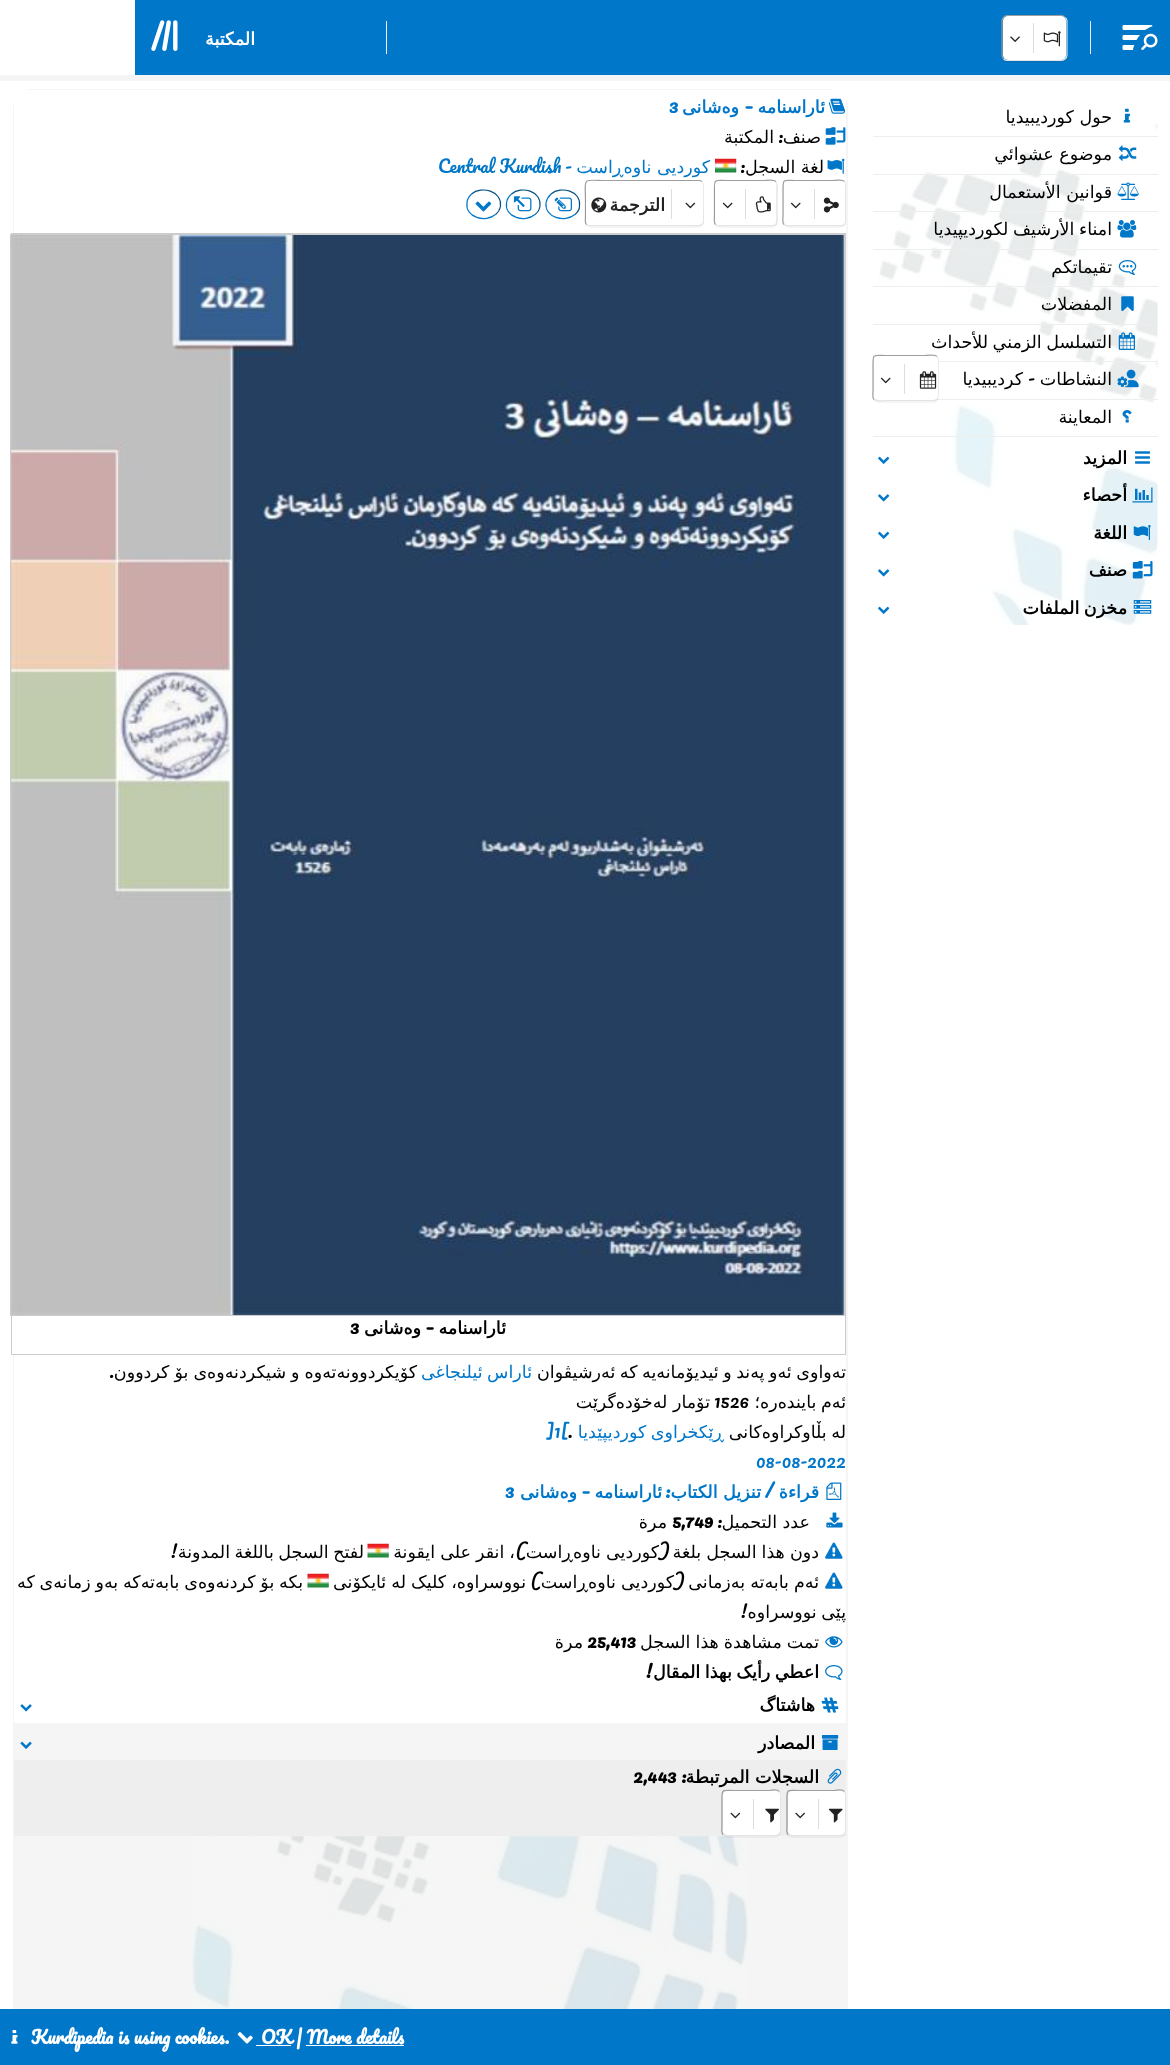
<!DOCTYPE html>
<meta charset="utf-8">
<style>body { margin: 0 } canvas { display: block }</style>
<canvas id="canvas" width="1170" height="2065"></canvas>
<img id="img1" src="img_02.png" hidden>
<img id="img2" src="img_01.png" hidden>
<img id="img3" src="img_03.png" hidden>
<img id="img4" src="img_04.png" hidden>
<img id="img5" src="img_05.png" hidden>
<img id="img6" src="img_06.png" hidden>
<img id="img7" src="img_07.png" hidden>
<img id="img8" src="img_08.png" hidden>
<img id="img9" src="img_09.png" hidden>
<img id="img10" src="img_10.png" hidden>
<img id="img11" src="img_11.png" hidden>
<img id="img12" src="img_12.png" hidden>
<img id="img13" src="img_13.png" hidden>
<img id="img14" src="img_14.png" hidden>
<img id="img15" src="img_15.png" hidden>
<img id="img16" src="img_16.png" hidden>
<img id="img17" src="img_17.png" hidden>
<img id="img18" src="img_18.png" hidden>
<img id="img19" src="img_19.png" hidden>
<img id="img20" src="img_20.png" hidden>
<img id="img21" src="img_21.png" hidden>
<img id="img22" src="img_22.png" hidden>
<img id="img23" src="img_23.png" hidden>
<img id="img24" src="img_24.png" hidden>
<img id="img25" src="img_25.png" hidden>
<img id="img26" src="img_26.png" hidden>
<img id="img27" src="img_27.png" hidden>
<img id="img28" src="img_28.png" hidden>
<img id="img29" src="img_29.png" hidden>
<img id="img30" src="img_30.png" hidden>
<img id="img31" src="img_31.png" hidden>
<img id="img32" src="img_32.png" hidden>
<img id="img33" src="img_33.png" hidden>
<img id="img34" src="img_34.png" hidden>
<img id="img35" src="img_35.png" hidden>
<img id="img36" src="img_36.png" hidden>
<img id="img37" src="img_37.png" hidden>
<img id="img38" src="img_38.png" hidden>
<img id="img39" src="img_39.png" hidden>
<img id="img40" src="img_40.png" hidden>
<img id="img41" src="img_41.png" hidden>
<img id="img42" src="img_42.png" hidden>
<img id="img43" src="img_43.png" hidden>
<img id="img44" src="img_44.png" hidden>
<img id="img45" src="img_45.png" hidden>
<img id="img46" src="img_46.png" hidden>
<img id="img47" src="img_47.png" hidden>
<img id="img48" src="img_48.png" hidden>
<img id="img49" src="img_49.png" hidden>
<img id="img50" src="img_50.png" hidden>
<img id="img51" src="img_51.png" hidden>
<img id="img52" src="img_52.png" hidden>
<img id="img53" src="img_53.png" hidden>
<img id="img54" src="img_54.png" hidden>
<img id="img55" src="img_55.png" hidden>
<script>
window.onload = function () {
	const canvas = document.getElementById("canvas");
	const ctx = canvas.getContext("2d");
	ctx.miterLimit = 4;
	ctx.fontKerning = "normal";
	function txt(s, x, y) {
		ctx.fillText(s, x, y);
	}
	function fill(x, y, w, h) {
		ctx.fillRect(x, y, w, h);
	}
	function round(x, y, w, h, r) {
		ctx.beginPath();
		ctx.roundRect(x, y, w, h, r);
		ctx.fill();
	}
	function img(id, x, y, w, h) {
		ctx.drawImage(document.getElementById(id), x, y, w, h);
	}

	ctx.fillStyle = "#FFFFFF";
	fill(0, 0, 1170, 2065);
	ctx.fillStyle = "#0077C8";
	fill(135, 0, 1035, 75);
	img("img1", 1122, 25, 31, 25);
	ctx.beginPath();
	ctx.moveTo(1167.5, 24);
	ctx.lineTo(1164, 24);
	ctx.bezierCurveTo(1146.5, 24, 1132.5, 38, 1132.5, 55.5);
	ctx.lineTo(1132.5, 59);
	ctx.lineTo(1167.5, 59);
	ctx.closePath();
	ctx.fill();
	img("img2", 1141, 33, 17, 17);
	ctx.fillStyle = "#EEEEEE";
	fill(1090, 21, 1, 33);
	ctx.beginPath();
	ctx.moveTo(1065, 17.5);
	ctx.bezierCurveTo(1066.5, 18.5, 1067, 20, 1067, 21);
	ctx.lineTo(1067, 55);
	ctx.bezierCurveTo(1067, 56.5, 1066.5, 58, 1065, 59);
	ctx.bezierCurveTo(1064, 60, 1062.5, 60.5, 1061, 60.5);
	ctx.lineTo(1007.5, 60.5);
	ctx.bezierCurveTo(1006, 60.5, 1004.5, 60, 1003.5, 59);
	ctx.strokeStyle = "#EEEEEE";
	ctx.lineWidth = 1.2;
	ctx.stroke();
	ctx.beginPath();
	ctx.moveTo(1003.5, 59);
	ctx.bezierCurveTo(1002.5, 58, 1002, 56.5, 1002, 55);
	ctx.lineTo(1002, 21);
	ctx.bezierCurveTo(1002, 20, 1002.5, 18.5, 1003.5, 17.5);
	ctx.bezierCurveTo(1004.5, 16, 1006, 15.5, 1007.5, 15.5);
	ctx.lineTo(1061, 15.5);
	ctx.bezierCurveTo(1062.5, 15.5, 1064, 16, 1065, 17.5);
	ctx.strokeStyle = "#9F9F9F";
	ctx.stroke();
	ctx.fillStyle = "rgba(0, 0, 0, 0.04)";
	ctx.beginPath();
	ctx.moveTo(1007, 16);
	ctx.bezierCurveTo(1004, 16, 1001, 19, 1001, 22);
	ctx.lineTo(1001, 57);
	ctx.bezierCurveTo(1001, 60, 1004, 63, 1007, 63);
	ctx.lineTo(1062, 63);
	ctx.bezierCurveTo(1065, 63, 1068, 60, 1068, 57);
	ctx.lineTo(1068, 22);
	ctx.bezierCurveTo(1068, 19, 1065, 16, 1062, 16);
	ctx.closePath();
	ctx.moveTo(1008, 16);
	ctx.bezierCurveTo(1005, 16, 1002, 18, 1002, 21);
	ctx.lineTo(1002, 55);
	ctx.bezierCurveTo(1002, 58, 1005, 60, 1008, 60);
	ctx.lineTo(1061, 60);
	ctx.bezierCurveTo(1064, 60, 1066, 58, 1066, 55);
	ctx.lineTo(1066, 21);
	ctx.bezierCurveTo(1066, 18, 1064, 16, 1061, 16);
	ctx.closePath();
	ctx.fill("evenodd");
	ctx.fillStyle = "#FFFFFF";
	round(1003, 16, 63, 44, 5);
	img("img3", 1043, 31, 18, 16);
	ctx.fillStyle = "#DDDDDD";
	fill(1033, 23, 1, 30);
	img("img4", 1010, 36, 10, 6);
	ctx.fillStyle = "#EEEEEE";
	fill(386, 21, 1, 33);
	img("img5", 151, 20, 27, 31);
	ctx.fillStyle = "#F5F5F5";
	fill(0, 75, 1170, 6);
	img("img6", 879, 124, 279, 501);
	ctx.fillStyle = "#EEEEEE";
	fill(873, 136, 285, 1);
	img("img7", 1123, 108, 7, 15);
	fill(873, 174, 285, 1);
	img("img8", 1118, 145, 19, 16);
	fill(873, 211, 285, 1);
	img("img9", 1117, 182, 22, 18);
	fill(873, 249, 285, 1);
	img("img10", 1117, 220, 20, 18);
	fill(873, 286, 285, 1);
	img("img11", 1118, 260, 19, 15);
	fill(873, 324, 285, 1);
	img("img12", 1121, 296, 13, 15);
	fill(873, 361, 285, 1);
	img("img13", 1118, 332, 17, 18);
	fill(873, 399, 285, 1);
	ctx.beginPath();
	ctx.moveTo(937, 356.5);
	ctx.bezierCurveTo(939, 358.5, 938, 364, 938, 365);
	ctx.lineTo(938, 391);
	ctx.bezierCurveTo(938, 403, 938, 400.5, 925, 400.5);
	ctx.lineTo(886, 400.5);
	ctx.bezierCurveTo(885.5, 400.5, 876.5, 402, 874, 399.5);
	ctx.strokeStyle = "#EEEEEE";
	ctx.stroke();
	ctx.beginPath();
	ctx.moveTo(874, 399.5);
	ctx.bezierCurveTo(872, 398, 873, 392.5, 873, 391);
	ctx.lineTo(873, 365);
	ctx.bezierCurveTo(873, 353.5, 873, 355.5, 886, 355.5);
	ctx.lineTo(925, 355.5);
	ctx.bezierCurveTo(926, 355.5, 935, 354, 937, 356.5);
	ctx.strokeStyle = "#9F9F9F";
	ctx.stroke();
	ctx.fillStyle = "rgba(0, 0, 0, 0.04)";
	ctx.beginPath();
	ctx.moveTo(879, 356);
	ctx.bezierCurveTo(876, 356, 873, 359, 873, 362);
	ctx.lineTo(873, 397);
	ctx.bezierCurveTo(873, 400, 876, 403, 879, 403);
	ctx.lineTo(933, 403);
	ctx.bezierCurveTo(936, 403, 939, 400, 939, 397);
	ctx.lineTo(939, 362);
	ctx.bezierCurveTo(939, 359, 936, 356, 933, 356);
	ctx.closePath();
	ctx.moveTo(879, 356);
	ctx.bezierCurveTo(876, 356, 874, 358, 874, 361);
	ctx.lineTo(874, 395);
	ctx.bezierCurveTo(874, 398, 876, 400, 879, 400);
	ctx.lineTo(932, 400);
	ctx.bezierCurveTo(935, 400, 938, 398, 938, 395);
	ctx.lineTo(938, 361);
	ctx.bezierCurveTo(938, 358, 935, 356, 932, 356);
	ctx.closePath();
	ctx.fill("evenodd");
	ctx.fillStyle = "#FFFFFF";
	round(874, 356, 64, 44, 5);
	img("img14", 919, 371, 18, 18);
	ctx.fillStyle = "#DDDDDD";
	fill(904, 364, 1, 30);
	img("img15", 880, 377, 11, 7);
	img("img16", 1117, 369, 22, 19);
	ctx.fillStyle = "#EEEEEE";
	fill(873, 436, 285, 1);
	img("img17", 1122, 410, 10, 13);
	img("img18", 1135, 451, 15, 13);
	img("img19", 878, 456, 12, 8);
	img("img20", 1132, 487, 21, 16);
	img("img21", 878, 494, 12, 8);
	img("img22", 1133, 525, 18, 15);
	img("img19", 878, 531, 12, 8);
	img("img23", 1132, 560, 21, 19);
	img("img21", 878, 569, 12, 8);
	img("img24", 1133, 600, 19, 14);
	img("img19", 878, 606, 12, 8);
	ctx.fillStyle = "#F5F5F5";
	round(13, 89, 835, 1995, 19);
	ctx.fillStyle = "#FFFFFF";
	fill(14, 90, 832, 1633);
	img("img25", 828, 98, 18, 16);
	img("img26", 825, 127, 21, 18);
	img("img27", 827, 158, 18, 16);
	img("img28", 715, 158, 22, 15);
	ctx.beginPath();
	ctx.moveTo(844.5, 181.5);
	ctx.bezierCurveTo(846.5, 183.5, 845.5, 189, 845.5, 190);
	ctx.lineTo(845.5, 216);
	ctx.bezierCurveTo(845.5, 228, 845.5, 225.5, 833, 225.5);
	ctx.lineTo(795.5, 225.5);
	ctx.bezierCurveTo(794.5, 225.5, 786.5, 227, 784, 224.5);
	ctx.strokeStyle = "#EEEEEE";
	ctx.stroke();
	ctx.beginPath();
	ctx.moveTo(784, 224.5);
	ctx.bezierCurveTo(782, 223, 783, 217.5, 783, 216);
	ctx.lineTo(783, 190);
	ctx.bezierCurveTo(783, 178.5, 783, 180.5, 795.5, 180.5);
	ctx.lineTo(833, 180.5);
	ctx.bezierCurveTo(834, 180.5, 842.5, 179, 844.5, 181.5);
	ctx.strokeStyle = "#9F9F9F";
	ctx.stroke();
	ctx.fillStyle = "rgba(0, 0, 0, 0.04)";
	ctx.beginPath();
	ctx.moveTo(789, 181);
	ctx.bezierCurveTo(786, 181, 783, 184, 783, 187);
	ctx.lineTo(783, 222);
	ctx.bezierCurveTo(783, 225, 786, 228, 789, 228);
	ctx.lineTo(840, 228);
	ctx.bezierCurveTo(843, 228, 846, 225, 846, 222);
	ctx.lineTo(846, 187);
	ctx.bezierCurveTo(846, 184, 843, 181, 840, 181);
	ctx.closePath();
	ctx.moveTo(789, 181);
	ctx.bezierCurveTo(786, 181, 784, 183, 784, 186);
	ctx.lineTo(784, 220);
	ctx.bezierCurveTo(784, 223, 786, 225, 789, 225);
	ctx.lineTo(840, 225);
	ctx.bezierCurveTo(843, 225, 845, 223, 845, 220);
	ctx.lineTo(845, 186);
	ctx.bezierCurveTo(845, 183, 843, 181, 840, 181);
	ctx.closePath();
	ctx.fill("evenodd");
	ctx.fillStyle = "#FFFFFF";
	round(784, 181, 61, 44, 5);
	img("img29", 823, 197, 16, 16);
	ctx.fillStyle = "#DDDDDD";
	fill(814, 189, 1, 30);
	img("img15", 790, 202, 11, 7);
	ctx.beginPath();
	ctx.moveTo(776, 181.5);
	ctx.bezierCurveTo(778, 183.5, 777, 189, 777, 190);
	ctx.lineTo(777, 216);
	ctx.bezierCurveTo(777, 228, 777, 225.5, 764.5, 225.5);
	ctx.lineTo(727, 225.5);
	ctx.bezierCurveTo(726, 225.5, 717.5, 227, 715.5, 224.5);
	ctx.strokeStyle = "#EEEEEE";
	ctx.stroke();
	ctx.beginPath();
	ctx.moveTo(715.5, 224.5);
	ctx.bezierCurveTo(713.5, 223, 714.5, 217.5, 714.5, 216);
	ctx.lineTo(714.5, 190);
	ctx.bezierCurveTo(714.5, 178.5, 714.5, 180.5, 727, 180.5);
	ctx.lineTo(764.5, 180.5);
	ctx.bezierCurveTo(765.5, 180.5, 773.5, 179, 776, 181.5);
	ctx.strokeStyle = "#9F9F9F";
	ctx.stroke();
	ctx.fillStyle = "rgba(0, 0, 0, 0.04)";
	ctx.beginPath();
	ctx.moveTo(720, 181);
	ctx.bezierCurveTo(717, 181, 714, 184, 714, 187);
	ctx.lineTo(714, 222);
	ctx.bezierCurveTo(714, 225, 717, 228, 720, 228);
	ctx.lineTo(772, 228);
	ctx.bezierCurveTo(775, 228, 778, 225, 778, 222);
	ctx.lineTo(778, 187);
	ctx.bezierCurveTo(778, 184, 775, 181, 772, 181);
	ctx.closePath();
	ctx.moveTo(720, 181);
	ctx.bezierCurveTo(717, 181, 715, 183, 715, 186);
	ctx.lineTo(715, 220);
	ctx.bezierCurveTo(715, 223, 717, 225, 720, 225);
	ctx.lineTo(771, 225);
	ctx.bezierCurveTo(774, 225, 776, 223, 776, 220);
	ctx.lineTo(776, 186);
	ctx.bezierCurveTo(776, 183, 774, 181, 771, 181);
	ctx.closePath();
	ctx.fill("evenodd");
	ctx.fillStyle = "#FFFFFF";
	round(715, 181, 61, 44, 5);
	img("img30", 755, 196, 16, 17);
	ctx.fillStyle = "#DDDDDD";
	fill(745, 189, 1, 30);
	img("img31", 722, 202, 11, 7);
	ctx.beginPath();
	ctx.moveTo(702, 181.5);
	ctx.bezierCurveTo(704, 183.5, 703, 189, 703, 190);
	ctx.lineTo(703, 203);
	ctx.bezierCurveTo(703, 230, 708.5, 225.5, 681.5, 225.5);
	ctx.lineTo(589, 225.5);
	ctx.lineTo(586.5, 224.5);
	ctx.strokeStyle = "#EEEEEE";
	ctx.stroke();
	ctx.beginPath();
	ctx.moveTo(586.5, 224.5);
	ctx.bezierCurveTo(584.5, 223, 585.5, 217.5, 585.5, 216);
	ctx.lineTo(585.5, 203);
	ctx.bezierCurveTo(585.5, 176, 580.5, 180.5, 607.5, 180.5);
	ctx.lineTo(700, 180.5);
	ctx.lineTo(702, 181.5);
	ctx.strokeStyle = "#9F9F9F";
	ctx.stroke();
	ctx.fillStyle = "rgba(0, 0, 0, 0.04)";
	ctx.beginPath();
	ctx.moveTo(591, 181);
	ctx.bezierCurveTo(588, 181, 585, 184, 585, 187);
	ctx.lineTo(585, 222);
	ctx.bezierCurveTo(585, 225, 588, 228, 591, 228);
	ctx.lineTo(698, 228);
	ctx.bezierCurveTo(701, 228, 704, 225, 704, 222);
	ctx.lineTo(704, 187);
	ctx.bezierCurveTo(704, 184, 701, 181, 698, 181);
	ctx.closePath();
	ctx.moveTo(591, 181);
	ctx.bezierCurveTo(588, 181, 586, 183, 586, 186);
	ctx.lineTo(586, 220);
	ctx.bezierCurveTo(586, 223, 588, 225, 591, 225);
	ctx.lineTo(698, 225);
	ctx.bezierCurveTo(700, 225, 702, 223, 702, 220);
	ctx.lineTo(702, 186);
	ctx.bezierCurveTo(702, 183, 700, 181, 698, 181);
	ctx.closePath();
	ctx.fill("evenodd");
	ctx.fillStyle = "#FFFFFF";
	round(586, 181, 117, 44, 5);
	img("img32", 685, 202, 11, 7);
	ctx.fillStyle = "#DDDDDD";
	fill(671, 189, 1, 30);
	img("img33", 591, 197, 16, 16);
	ctx.beginPath();
	ctx.moveTo(551, 194);
	ctx.bezierCurveTo(548.5, 196.5, 546.5, 199.5, 546, 203);
	ctx.bezierCurveTo(544.5, 217.5, 564.5, 223, 575, 214.5);
	ctx.strokeStyle = "#0077C8";
	ctx.stroke();
	ctx.beginPath();
	ctx.moveTo(575, 214.5);
	ctx.bezierCurveTo(577.5, 212.5, 579.5, 209, 579.5, 206);
	ctx.bezierCurveTo(581.5, 191, 561, 185.5, 551, 194);
	ctx.strokeStyle = "#004F85";
	ctx.stroke();
	img("img34", 554, 197, 18, 15);
	ctx.beginPath();
	ctx.moveTo(511.5, 194);
	ctx.bezierCurveTo(508.5, 196.5, 507, 199.5, 506.5, 203);
	ctx.bezierCurveTo(504.5, 217.5, 525, 223, 535, 214.5);
	ctx.strokeStyle = "#0077C8";
	ctx.stroke();
	ctx.beginPath();
	ctx.moveTo(535, 214.5);
	ctx.bezierCurveTo(538, 212.5, 539.5, 209, 540, 206);
	ctx.bezierCurveTo(541.5, 191, 521.5, 185.5, 511.5, 194);
	ctx.strokeStyle = "#004F85";
	ctx.stroke();
	img("img35", 513, 196, 19, 16);
	ctx.beginPath();
	ctx.moveTo(471.5, 194);
	ctx.bezierCurveTo(469, 196.5, 467, 199.5, 467, 203);
	ctx.bezierCurveTo(465, 217.5, 485.5, 223, 495.5, 214.5);
	ctx.strokeStyle = "#0077C8";
	ctx.stroke();
	ctx.beginPath();
	ctx.moveTo(495.5, 214.5);
	ctx.bezierCurveTo(498, 212.5, 500, 209, 500.5, 206);
	ctx.bezierCurveTo(502, 191, 481.5, 185.5, 471.5, 194);
	ctx.strokeStyle = "#004F85";
	ctx.stroke();
	img("img36", 475, 201, 17, 11);
	ctx.fillStyle = "#FFFFFF";
	fill(13, 235, 1, 1119);
	ctx.strokeStyle = "#CCCCCC";
	ctx.lineWidth = 1;
	ctx.strokeRect(11.5, 233.5, 834, 1121);
	ctx.strokeRect(10.5, 234.5, 834, 1081);
	img("img37", 11, 235, 833, 1080);
	img("img38", 826, 1482, 16, 18);
	img("img39", 826, 1512, 17, 16);
	img("img40", 825, 1542, 18, 17);
	img("img41", 367, 1543, 22, 15);
	img("img40", 825, 1572, 18, 17);
	img("img42", 307, 1573, 22, 15);
	img("img43", 825, 1636, 18, 12);
	img("img44", 825, 1665, 18, 15);
	img("img45", 821, 1697, 18, 16);
	img("img46", 20, 1704, 12, 8);
	img("img47", 821, 1735, 18, 15);
	img("img48", 20, 1741, 12, 8);
	ctx.fillStyle = "#EEEEEE";
	fill(14, 1760, 832, 76);
	img("img49", 827, 1768, 15, 16);
	ctx.beginPath();
	ctx.moveTo(844.5, 1791.5);
	ctx.bezierCurveTo(846.5, 1793.5, 845.5, 1799, 845.5, 1800);
	ctx.lineTo(845.5, 1826);
	ctx.bezierCurveTo(845.5, 1837.5, 846, 1835.5, 834, 1835.5);
	ctx.lineTo(799, 1835.5);
	ctx.bezierCurveTo(798.5, 1835.5, 790, 1837, 788, 1834.5);
	ctx.strokeStyle = "#EEEEEE";
	ctx.lineWidth = 1.2;
	ctx.stroke();
	ctx.beginPath();
	ctx.moveTo(788, 1834.5);
	ctx.bezierCurveTo(786, 1833, 787, 1827.5, 787, 1826);
	ctx.lineTo(787, 1800);
	ctx.bezierCurveTo(787, 1788.5, 786.5, 1790.5, 799, 1790.5);
	ctx.lineTo(834, 1790.5);
	ctx.bezierCurveTo(834, 1790.5, 842.5, 1789, 844.5, 1791.5);
	ctx.strokeStyle = "#9F9F9F";
	ctx.stroke();
	ctx.fillStyle = "rgba(0, 0, 0, 0.04)";
	ctx.beginPath();
	ctx.moveTo(792, 1791);
	ctx.bezierCurveTo(789, 1791, 786, 1794, 786, 1797);
	ctx.lineTo(786, 1832);
	ctx.bezierCurveTo(786, 1835, 789, 1838, 792, 1838);
	ctx.lineTo(840, 1838);
	ctx.bezierCurveTo(843, 1838, 846, 1835, 846, 1832);
	ctx.lineTo(846, 1797);
	ctx.bezierCurveTo(846, 1794, 843, 1791, 840, 1791);
	ctx.closePath();
	ctx.moveTo(792, 1791);
	ctx.bezierCurveTo(790, 1791, 788, 1793, 788, 1796);
	ctx.lineTo(788, 1830);
	ctx.bezierCurveTo(788, 1833, 790, 1835, 792, 1835);
	ctx.lineTo(840, 1835);
	ctx.bezierCurveTo(843, 1835, 845, 1833, 845, 1830);
	ctx.lineTo(845, 1796);
	ctx.bezierCurveTo(845, 1793, 843, 1791, 840, 1791);
	ctx.closePath();
	ctx.fill("evenodd");
	ctx.fillStyle = "#FFFFFF";
	round(788, 1791, 57, 44, 5);
	img("img50", 828, 1808, 15, 15);
	ctx.fillStyle = "#DDDDDD";
	fill(818, 1799, 1, 30);
	img("img51", 795, 1812, 10, 7);
	ctx.beginPath();
	ctx.moveTo(779.5, 1791.5);
	ctx.bezierCurveTo(781.5, 1793.5, 780.5, 1799, 780.5, 1800);
	ctx.lineTo(780.5, 1826);
	ctx.bezierCurveTo(780.5, 1837.5, 781, 1835.5, 769, 1835.5);
	ctx.lineTo(734, 1835.5);
	ctx.bezierCurveTo(733.5, 1835.5, 725, 1837, 723, 1834.5);
	ctx.strokeStyle = "#EEEEEE";
	ctx.stroke();
	ctx.beginPath();
	ctx.moveTo(723, 1834.5);
	ctx.bezierCurveTo(721, 1833, 722, 1827.5, 722, 1826);
	ctx.lineTo(722, 1800);
	ctx.bezierCurveTo(722, 1788.5, 721.5, 1790.5, 734, 1790.5);
	ctx.lineTo(769, 1790.5);
	ctx.bezierCurveTo(769, 1790.5, 777.5, 1789, 779.5, 1791.5);
	ctx.strokeStyle = "#9F9F9F";
	ctx.stroke();
	ctx.fillStyle = "rgba(0, 0, 0, 0.04)";
	ctx.beginPath();
	ctx.moveTo(727, 1791);
	ctx.bezierCurveTo(724, 1791, 721, 1794, 721, 1797);
	ctx.lineTo(721, 1832);
	ctx.bezierCurveTo(721, 1835, 724, 1838, 727, 1838);
	ctx.lineTo(775, 1838);
	ctx.bezierCurveTo(778, 1838, 781, 1835, 781, 1832);
	ctx.lineTo(781, 1797);
	ctx.bezierCurveTo(781, 1794, 778, 1791, 775, 1791);
	ctx.closePath();
	ctx.moveTo(728, 1791);
	ctx.bezierCurveTo(725, 1791, 722, 1793, 722, 1796);
	ctx.lineTo(722, 1830);
	ctx.bezierCurveTo(722, 1833, 725, 1835, 728, 1835);
	ctx.lineTo(775, 1835);
	ctx.bezierCurveTo(778, 1835, 780, 1833, 780, 1830);
	ctx.lineTo(780, 1796);
	ctx.bezierCurveTo(780, 1793, 778, 1791, 775, 1791);
	ctx.closePath();
	ctx.fill("evenodd");
	ctx.fillStyle = "#FFFFFF";
	round(723, 1791, 57, 44, 5);
	img("img52", 765, 1808, 14, 15);
	ctx.fillStyle = "#DDDDDD";
	fill(753, 1799, 1, 30);
	img("img32", 730, 1812, 11, 7);
	img("img53", 192, 1836, 556, 173);
	ctx.fillStyle = "#0077C8";
	fill(0, 2009, 1170, 56);
	ctx.fillStyle = "#FFFFFF";
	fill(256, 2045, 35, 1);
	img("img54", 237, 2032, 16, 12);
	img("img55", 11, 2030, 7, 14);
	fill(306, 2045, 98, 1);
	ctx.direction = "rtl";
	ctx.font = "bold 17.5px DejaVu Sans";
	txt("المکتبة", 255, 45);
	ctx.font = "17.5px DejaVu Sans";
	ctx.fillStyle = "#000000";
	txt("حول كورديبيديا", 1112, 123);
	txt("موضوع عشوائي", 1112, 160);
	txt("قوانين الأستعمال", 1112, 198);
	ctx.wordSpacing = "-1px";
	txt("امناء الأرشيف لکوردیپیدیا", 1112, 235);
	ctx.wordSpacing = "0px";
	txt("تقيماتکم", 1112, 273);
	txt("المفضلات", 1112, 310);
	ctx.wordSpacing = "-1px";
	txt("التسلسل الزمني للأحداث", 1112, 348);
	ctx.wordSpacing = "0px";
	txt("النشاطات", 1112, 385);
	ctx.font = "17.5px Pacifico";
	txt("-", 1035, 385);
	ctx.font = "17.5px DejaVu Sans";
	txt("کرديبيديا", 1023, 385);
	txt("المعاينة", 1112, 423);
	ctx.font = "bold 17.5px DejaVu Sans";
	txt("المزيد", 1127, 464);
	txt("أحصاء", 1127, 501);
	txt("اللغة", 1127, 539);
	txt("صنف", 1127, 576);
	ctx.wordSpacing = "-1px";
	txt("مخزن الملفات", 1127, 614);
	ctx.wordSpacing = "0px";
	ctx.fillStyle = "#0077C8";
	txt("ئاراسنامە", 825, 113);
	ctx.font = "bold 17.5px Pacifico";
	txt("–", 753, 113);
	ctx.font = "bold 17.5px DejaVu Sans";
	txt("وەشانی", 739, 113);
	ctx.direction = "ltr";
	ctx.font = "bold 17.5px Pacifico";
	txt("3", 669, 113);
	ctx.direction = "rtl";
	ctx.font = "17.5px DejaVu Sans";
	ctx.fillStyle = "#000000";
	txt("صنف", 821, 143);
	ctx.font = "17.5px Pacifico";
	txt(":", 783, 143);
	ctx.font = "17.5px DejaVu Sans";
	txt("المکتبة", 774, 143);
	txt("لغة السجل", 824, 173);
	ctx.font = "17.5px Pacifico";
	txt(":", 745, 173);
	ctx.font = "17.5px DejaVu Sans";
	ctx.fillStyle = "#0077C8";
	txt("کوردیی ناوەڕاست", 710, 173);
	ctx.font = "17.5px Pacifico";
	txt("-", 572, 173);
	ctx.direction = "ltr";
	txt("Central Kurdish", 438, 173);
	ctx.direction = "rtl";
	ctx.font = "bold 17.5px DejaVu Sans";
	ctx.fillStyle = "#222222";
	txt("الترجمة", 665, 211);
	ctx.fillStyle = "#000000";
	txt("ئاراسنامە", 506, 1334);
	ctx.font = "bold 17.5px Pacifico";
	txt("–", 434, 1334);
	ctx.font = "bold 17.5px DejaVu Sans";
	txt("وەشانی", 421, 1334);
	ctx.direction = "ltr";
	ctx.font = "bold 17.5px Pacifico";
	txt("3", 350, 1334);
	ctx.wordSpacing = "-1px";
	ctx.direction = "rtl";
	ctx.font = "17.5px DejaVu Sans";
	txt("تەواوی ئەو پەند و ئیدیۆمانەیە کە ئەرشیڤوان", 846, 1378);
	ctx.fillStyle = "#0077C8";
	txt("ئاراس ئیلنجاغی", 532, 1378);
	ctx.wordSpacing = "-0.5px";
	ctx.fillStyle = "#000000";
	txt("کۆیکردوونەتەوە و شیکردنەوەی بۆ کردوون", 417, 1378);
	ctx.wordSpacing = "0px";
	ctx.font = "17.5px Pacifico";
	txt(".", 114, 1378);
	ctx.wordSpacing = "-1px";
	ctx.font = "17.5px DejaVu Sans";
	txt("ئەم بایندەرە؛", 846, 1408);
	ctx.wordSpacing = "0px";
	ctx.direction = "ltr";
	ctx.font = "17.5px Pacifico";
	txt("1526", 714, 1408);
	ctx.direction = "rtl";
	ctx.font = "17.5px DejaVu Sans";
	txt("تۆمار لەخۆدەگرێت", 710, 1408);
	ctx.wordSpacing = "-1px";
	txt("لە بڵاوکراوەکانی", 846, 1438);
	ctx.fillStyle = "#0077C8";
	txt("ڕێکخراوی کوردیپێدیا", 724, 1438);
	ctx.wordSpacing = "0px";
	ctx.direction = "ltr";
	ctx.font = "17.5px Pacifico";
	ctx.fillStyle = "#000000";
	txt(".", 568, 1438);
	ctx.fillStyle = "#0077C8";
	txt("]1[", 547, 1438);
	txt("08-08-2022", 756, 1468);
	ctx.direction = "rtl";
	ctx.font = "bold 17.5px DejaVu Sans";
	txt("قراءة", 819, 1498);
	ctx.font = "bold 17.5px Pacifico";
	txt("/", 774, 1498);
	ctx.font = "bold 17.5px DejaVu Sans";
	txt("تنزيل الكتاب", 761, 1498);
	ctx.font = "bold 17.5px Pacifico";
	txt(":", 670, 1498);
	ctx.font = "bold 17.5px DejaVu Sans";
	txt("ئاراسنامە", 662, 1498);
	ctx.font = "bold 17.5px Pacifico";
	txt("–", 590, 1498);
	ctx.font = "bold 17.5px DejaVu Sans";
	txt("وەشانی", 577, 1498);
	ctx.direction = "ltr";
	ctx.font = "bold 17.5px Pacifico";
	txt("3", 505, 1498);
	ctx.direction = "rtl";
	ctx.font = "17.5px DejaVu Sans";
	ctx.fillStyle = "#000000";
	txt("عدد التحميل", 810, 1528);
	ctx.font = "17.5px Pacifico";
	txt(":", 722, 1528);
	ctx.direction = "ltr";
	ctx.font = "bold 17.5px Pacifico";
	txt("5,749", 672, 1528);
	ctx.direction = "rtl";
	ctx.font = "17.5px DejaVu Sans";
	txt("مرة", 667, 1528);
	ctx.wordSpacing = "-0.5px";
	txt("دون هذا السجل بلغة", 819, 1558);
	ctx.wordSpacing = "0px";
	ctx.font = "17.5px Pacifico";
	txt("(", 670, 1558);
	ctx.wordSpacing = "-0.5px";
	ctx.font = "17.5px DejaVu Sans";
	txt("کوردیی ناوەڕاست", 659, 1558);
	txt("، انقر علی ايقونة", 515, 1558);
	ctx.wordSpacing = "0px";
	ctx.font = "17.5px Pacifico";
	txt(")", 526, 1558);
	ctx.wordSpacing = "-1px";
	ctx.font = "17.5px DejaVu Sans";
	txt("لفتح السجل باللغة المدونة", 364, 1558);
	ctx.wordSpacing = "0px";
	ctx.font = "17.5px Pacifico";
	txt("!", 177, 1558);
	ctx.wordSpacing = "-0.5px";
	ctx.font = "17.5px DejaVu Sans";
	txt("ئەم بابەتە بەزمانی", 819, 1588);
	ctx.wordSpacing = "0px";
	ctx.font = "17.5px Pacifico";
	txt("(", 685, 1588);
	ctx.wordSpacing = "-0.5px";
	ctx.font = "17.5px DejaVu Sans";
	txt("کوردیی ناوەڕاست", 674, 1588);
	ctx.wordSpacing = "0px";
	ctx.font = "17.5px Pacifico";
	txt(")", 541, 1588);
	ctx.wordSpacing = "-0.5px";
	ctx.font = "17.5px DejaVu Sans";
	txt("نووسراوە، کلیک لە ئایکۆنی", 526, 1588);
	ctx.wordSpacing = "-0.75px";
	txt("بکە بۆ کردنەوەی بابەتەکە بەو زمانەی کە", 303, 1588);
	ctx.wordSpacing = "-1px";
	txt("پێی نووسراوە", 846, 1618);
	ctx.wordSpacing = "0px";
	ctx.font = "17.5px Pacifico";
	txt("!", 747, 1618);
	ctx.wordSpacing = "-0.5px";
	ctx.font = "17.5px DejaVu Sans";
	txt("تمت مشاهدة هذا السجل", 819, 1648);
	ctx.wordSpacing = "0px";
	ctx.direction = "ltr";
	ctx.font = "bold 17.5px Pacifico";
	txt("25,413", 587, 1648);
	ctx.direction = "rtl";
	ctx.font = "17.5px DejaVu Sans";
	txt("مرة", 583, 1648);
	ctx.wordSpacing = "-1px";
	ctx.font = "bold 17.5px DejaVu Sans";
	txt("اعطي رأيک بهذا المقال", 819, 1678);
	ctx.wordSpacing = "0px";
	ctx.font = "bold 17.5px Pacifico";
	txt("!", 652, 1678);
	ctx.font = "bold 17.5px DejaVu Sans";
	txt("هاشتاگ", 815, 1711);
	txt("المصادر", 815, 1749);
	txt("السجلات المرتبطة", 819, 1783);
	ctx.font = "bold 17.5px Pacifico";
	txt(":", 686, 1783);
	ctx.direction = "ltr";
	txt("2,443", 633, 1783);
	ctx.fillStyle = "#FFFFFF";
	txt("OK | More details", 261, 2044);
	txt("Kurdipedia is using cookies.", 31, 2044);
};
</script>
